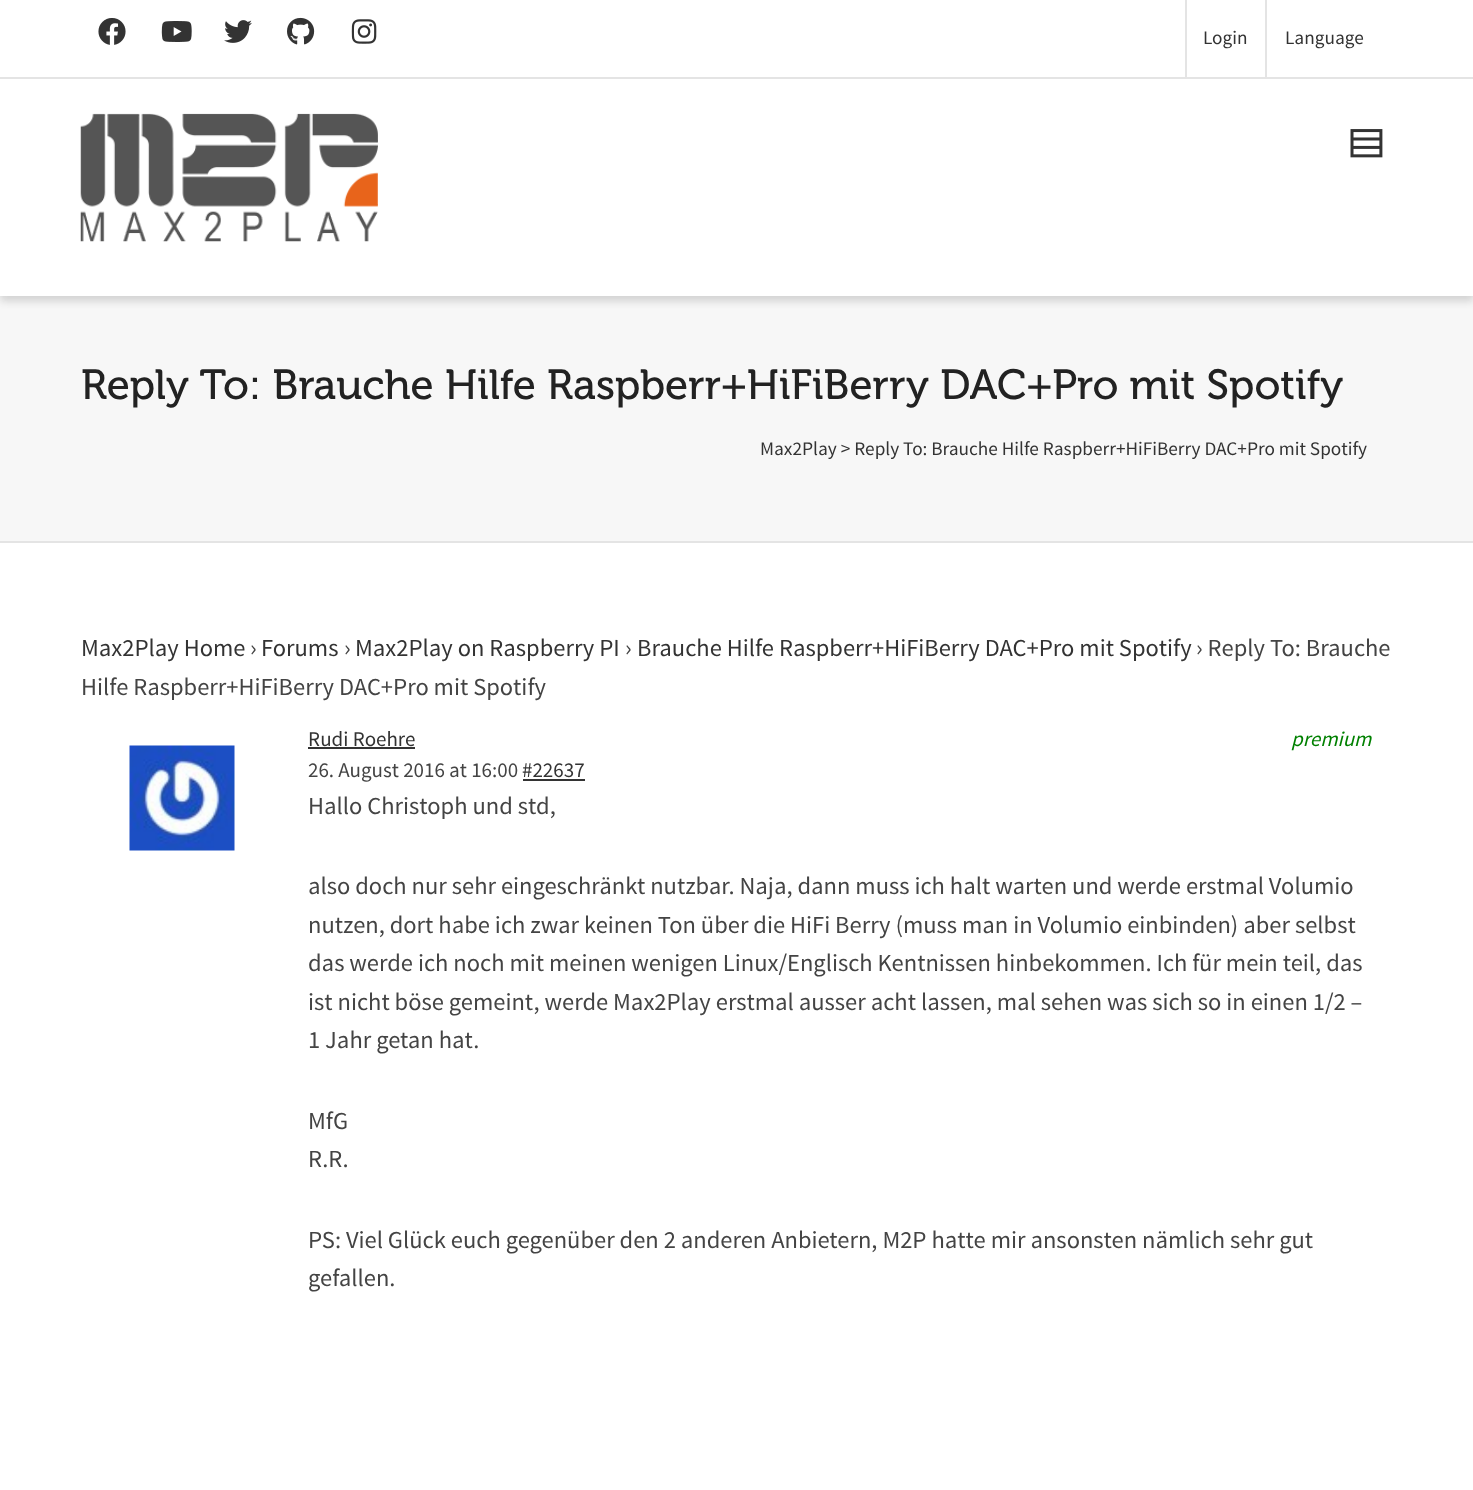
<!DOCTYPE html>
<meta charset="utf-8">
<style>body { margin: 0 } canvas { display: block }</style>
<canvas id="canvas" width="1473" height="1490"></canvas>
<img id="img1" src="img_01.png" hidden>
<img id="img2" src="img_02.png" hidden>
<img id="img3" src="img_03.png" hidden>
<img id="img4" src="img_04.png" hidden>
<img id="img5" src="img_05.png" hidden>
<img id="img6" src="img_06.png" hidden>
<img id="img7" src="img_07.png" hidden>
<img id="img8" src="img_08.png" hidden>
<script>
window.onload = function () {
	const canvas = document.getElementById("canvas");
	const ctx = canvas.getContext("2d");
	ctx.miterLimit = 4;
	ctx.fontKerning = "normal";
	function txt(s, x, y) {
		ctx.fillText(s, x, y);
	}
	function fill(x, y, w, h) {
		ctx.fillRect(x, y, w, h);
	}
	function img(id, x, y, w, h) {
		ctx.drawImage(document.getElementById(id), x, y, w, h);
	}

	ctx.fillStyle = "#FFFFFF";
	fill(0, 0, 1473, 1490);
	ctx.fillStyle = "#F7F7F7";
	fill(0, 296, 1473, 245);
	ctx.fillStyle = "rgba(0, 0, 0, 0.1)";
	ctx.filter = "blur(4.5px)";
	ctx.beginPath();
	ctx.rect(0, 5, 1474, 296);
	ctx.fill();
	ctx.filter = "none";
	ctx.fillStyle = "rgba(0, 0, 0, 0.05)";
	ctx.filter = "blur(4.5px)";
	ctx.beginPath();
	ctx.rect(0, 5, 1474, 296);
	ctx.fill();
	ctx.filter = "none";
	ctx.fillStyle = "#FFFFFF";
	fill(0, 0, 1473, 296);
	ctx.fillStyle = "#E4E4E4";
	fill(0, 77, 1473, 2);
	img("img1", 98, 18, 28, 27);
	img("img2", 161, 21, 31, 21);
	img("img3", 224, 20, 28, 23);
	img("img4", 287, 17, 28, 28);
	img("img5", 351, 19, 26, 25);
	fill(1185, 0, 2, 77);
	fill(1265, 0, 2, 77);
	img("img6", 80, 113, 298, 129);
	img("img7", 1350, 129, 33, 29);
	fill(0, 541, 1473, 2);
	img("img8", 129, 745, 106, 106);
	ctx.fillStyle = "#333333";
	fill(308, 747, 107, 2);
	fill(523, 779, 62, 2);
	ctx.font = "19.25px Source Sans Pro";
	txt("Login", 1203, 44);
	txt("Language", 1285, 44);
	ctx.font = "42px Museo";
	ctx.fillStyle = "#222222";
	txt("Reply To: Brauche Hilfe Raspberr+HiFiBerry DAC+Pro mit Spotify", 81, 399);
	ctx.font = "19.25px Source Sans Pro";
	ctx.fillStyle = "#333333";
	txt("Max2Play > Reply To: Brauche Hilfe Raspberr+HiFiBerry DAC+Pro mit Spotify", 760, 455);
	ctx.font = "24.5px Source Sans Pro";
	txt("Max2Play Home", 81, 656);
	ctx.fillStyle = "#444444";
	txt("›", 250, 656);
	ctx.fillStyle = "#333333";
	txt("Forums", 261, 656);
	ctx.fillStyle = "#444444";
	txt("›", 344, 656);
	ctx.fillStyle = "#333333";
	txt("Max2Play on Raspberry PI", 355, 656);
	ctx.fillStyle = "#444444";
	txt("›", 625, 656);
	ctx.fillStyle = "#333333";
	txt("Brauche Hilfe Raspberr+HiFiBerry DAC+Pro mit Spotify", 637, 656);
	ctx.fillStyle = "#444444";
	txt("› Reply To: Brauche", 1196, 656);
	txt("Hilfe Raspberr+HiFiBerry DAC+Pro mit Spotify", 81, 695);
	ctx.font = "21px Source Sans Pro";
	ctx.fillStyle = "#333333";
	txt("Rudi Roehre", 308, 746);
	ctx.font = "italic 21px Source Sans Pro";
	ctx.fillStyle = "#008000";
	txt("premium", 1291, 746);
	ctx.font = "21px Source Sans Pro";
	ctx.fillStyle = "#444444";
	txt("26. August 2016 at 16:00", 308, 777);
	ctx.fillStyle = "#333333";
	txt("#22637", 522, 777);
	ctx.font = "24.5px Source Sans Pro";
	ctx.fillStyle = "#444444";
	txt("Hallo Christoph und std,", 308, 814);
	txt("also doch nur sehr eingeschränkt nutzbar. Naja, dann muss ich halt warten und werde erstmal Volumio", 308, 894);
	txt("nutzen, dort habe ich zwar keinen Ton über die HiFi Berry (muss man in Volumio einbinden) aber selbst", 308, 933);
	txt("das werde ich noch mit meinen wenigen Linux/Englisch Kentnissen hinbekommen. Ich für mein teil, das", 308, 971);
	txt("ist nicht böse gemeint, werde Max2Play erstmal ausser acht lassen, mal sehen was sich so in einen 1/2 –", 308, 1010);
	txt("1 Jahr getan hat.", 308, 1048);
	txt("MfG", 308, 1129);
	txt("R.R.", 308, 1167);
	txt("PS: Viel Glück euch gegenüber den 2 anderen Anbietern, M2P hatte mir ansonsten nämlich sehr gut", 308, 1248);
	txt("gefallen.", 308, 1286);
};
</script>
